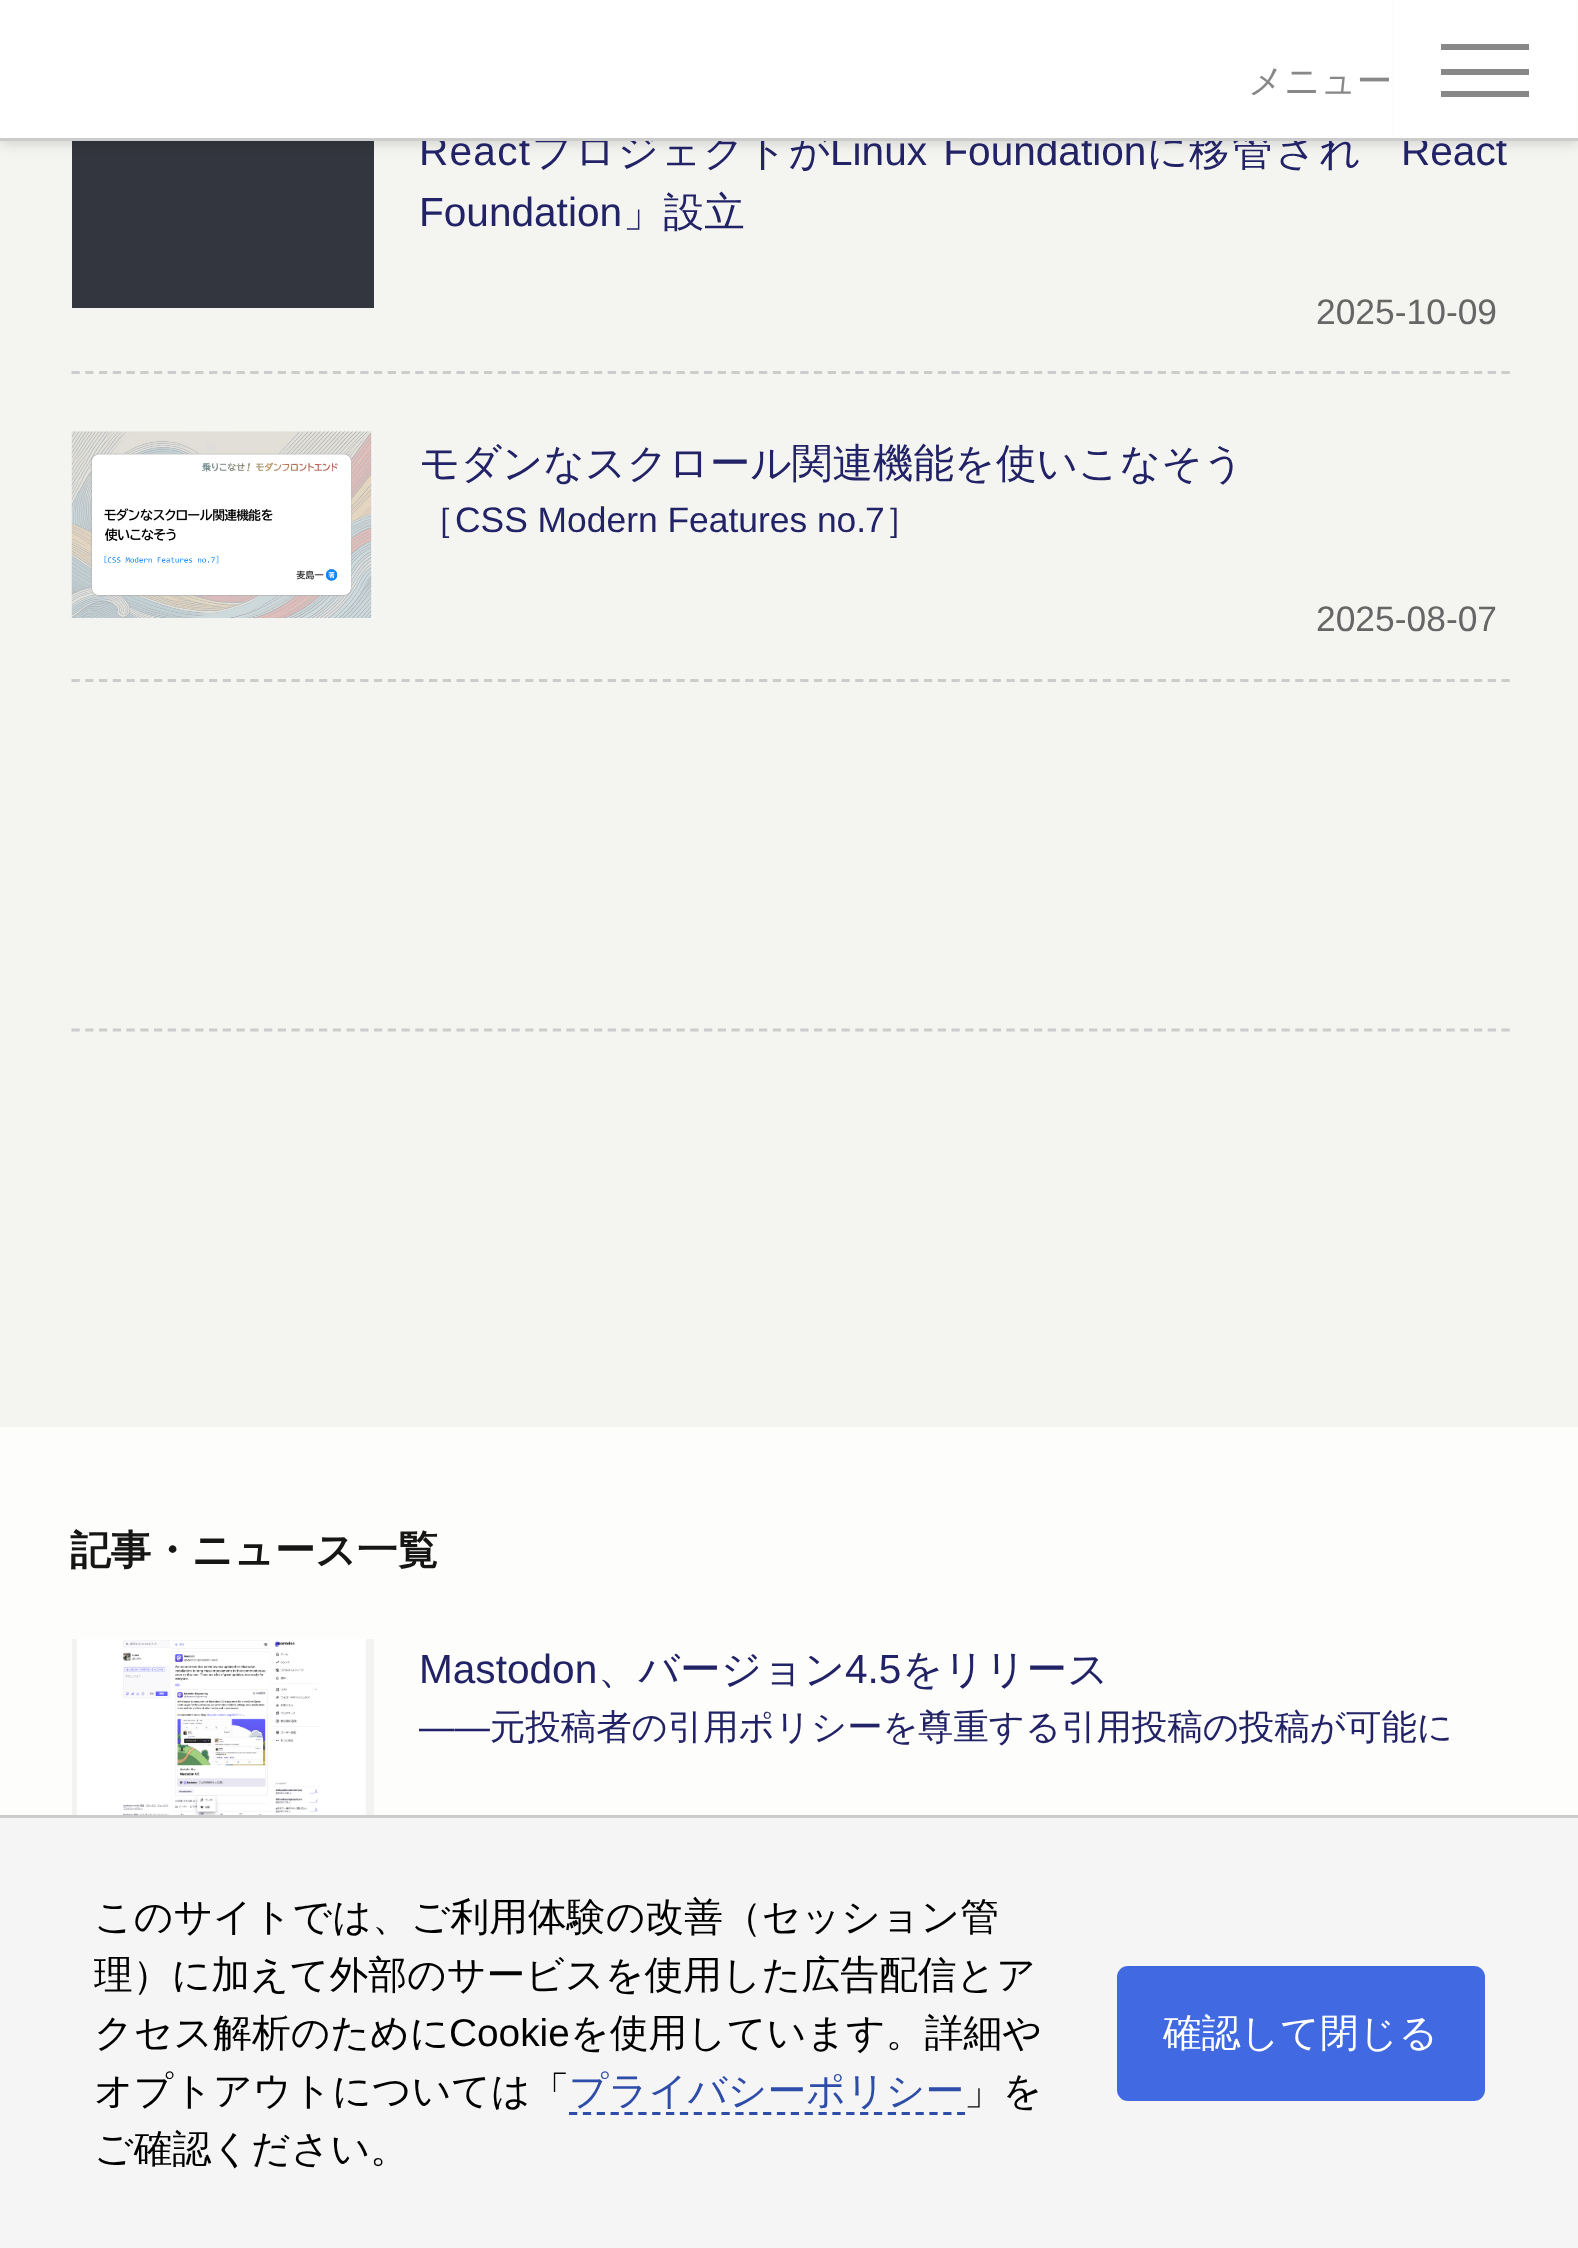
<!DOCTYPE html>
<meta charset="utf-8">
<style>body { margin: 0 } canvas { display: block }</style>
<canvas id="canvas" width="1578" height="2248"></canvas>
<img id="img1" src="img_01.png" hidden>
<img id="img2" src="img_02.png" hidden>
<script>
window.onload = function () {
	const canvas = document.getElementById("canvas");
	const ctx = canvas.getContext("2d");
	ctx.miterLimit = 4;
	ctx.fontKerning = "none";
	function txt(s, x, y) {
		ctx.fillText(s, x, y);
	}
	function fill(x, y, w, h) {
		ctx.fillRect(x, y, w, h);
	}
	function round(x, y, w, h, r) {
		ctx.beginPath();
		ctx.roundRect(x, y, w, h, r);
		ctx.fill();
	}
	function img(id, x, y, w, h) {
		ctx.drawImage(document.getElementById(id), x, y, w, h);
	}

	ctx.fillStyle = "#FDFDFC";
	fill(0, 0, 1578, 2248);
	ctx.fillStyle = "#F4F4F0";
	fill(0, 141, 1578, 1286);
	ctx.fillStyle = "#33363E";
	fill(72, 141, 302, 167);
	ctx.fillStyle = "rgba(0, 0, 0, 0.15)";
	ctx.filter = "blur(7px)";
	ctx.beginPath();
	ctx.rect(0, 3, 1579, 140);
	ctx.fill();
	ctx.filter = "none";
	ctx.beginPath();
	ctx.moveTo(71.5, 372.5);
	ctx.lineTo(1510, 372.5);
	ctx.strokeStyle = "#CCCCCC";
	ctx.lineWidth = 2.8;
	ctx.setLineDash([8.25, 5.5]);
	ctx.stroke();
	ctx.fillStyle = "#F6F6F5";
	fill(72, 432, 302, 187);
	img("img1", 71, 431, 301, 188);
	ctx.beginPath();
	ctx.moveTo(71.5, 680.5);
	ctx.lineTo(1510, 680.5);
	ctx.stroke();
	ctx.beginPath();
	ctx.moveTo(71.5, 1030);
	ctx.lineTo(1510, 1030);
	ctx.stroke();
	ctx.fillStyle = "#F3F3F2";
	fill(72, 1639, 302, 176);
	img("img2", 77, 1639, 289, 176);
	ctx.fillStyle = "#F5F5F5";
	fill(0, 1818, 1578, 430);
	ctx.fillStyle = "#CCCCCC";
	fill(0, 1815, 1578, 3);
	ctx.beginPath();
	ctx.moveTo(569, 2113.5);
	ctx.lineTo(965, 2113.5);
	ctx.strokeStyle = "#2E4DA9";
	ctx.setLineDash([8.25, 5.61]);
	ctx.stroke();
	ctx.fillStyle = "#4169E1";
	round(1117, 1966, 368, 135, 11);
	ctx.letterSpacing = "1.25px";
	ctx.font = "40.6px Liberation Sans";
	ctx.fillStyle = "#222266";
	txt("React", 419, 165);
	ctx.font = "500 40.6px WenQuanYi Zen Hei";
	txt("プロジェクトが", 532, 165);
	ctx.letterSpacing = "0px";
	ctx.wordSpacing = "5px";
	ctx.font = "40.6px Liberation Sans";
	txt("Linux Foundation", 830, 165);
	ctx.wordSpacing = "0px";
	ctx.font = "500 40.6px WenQuanYi Zen Hei";
	txt("に", 1147, 165);
	ctx.letterSpacing = "2.5px";
	txt("移管され", 1189, 165);
	ctx.letterSpacing = "0px";
	ctx.font = "40.6px Liberation Sans";
	txt("React", 1401, 165);
	ctx.fillStyle = "#FFFFFF";
	fill(0, 0, 1576, 138);
	ctx.font = "500 35.4px WenQuanYi Zen Hei";
	ctx.fillStyle = "#888888";
	txt("メニュー", 1248, 93);
	ctx.fillStyle = "#CCCCCC";
	fill(0, 138, 1578, 3);
	ctx.fillStyle = "#FDFDFC";
	fill(1576, 0, 2, 140);
	ctx.fillStyle = "#CCCCCC";
	fill(1576, 138, 2, 3);
	ctx.fillStyle = "#888888";
	fill(1441, 91, 88, 6);
	fill(1441, 44, 88, 6);
	fill(1441, 69, 88, 6);
	ctx.fillStyle = "#FDFDFC";
	fill(1392, 0, 3, 140);
	ctx.fillStyle = "#CCCCCC";
	fill(1392, 138, 3, 2);
	ctx.font = "40.6px Liberation Sans";
	ctx.fillStyle = "#222266";
	txt("Foundation", 419, 226);
	ctx.font = "500 40.6px WenQuanYi Zen Hei";
	txt("」設立", 623, 226);
	ctx.font = "35.4px Liberation Sans";
	ctx.fillStyle = "#666666";
	txt("2025-10-09", 1316, 324);
	ctx.font = "500 40.6px WenQuanYi Zen Hei";
	ctx.fillStyle = "#222266";
	txt("モダンなスクロール関連機能を", 419, 477);
	txt("使いこなそう", 996, 477);
	ctx.font = "500 35.4px WenQuanYi Zen Hei";
	txt("［", 419, 532);
	ctx.font = "35.4px Liberation Sans";
	txt("CSS Modern Features no.", 455, 532);
	txt("7", 865, 532);
	ctx.font = "500 35.4px WenQuanYi Zen Hei";
	txt("］", 885, 532);
	ctx.font = "35.4px Liberation Sans";
	ctx.fillStyle = "#666666";
	txt("2025-08-07", 1316, 631);
	ctx.font = "bold 40.6px WenQuanYi Zen Hei";
	ctx.fillStyle = "#161615";
	txt("記事・ニュース一覧", 70, 1564);
	ctx.font = "40.6px Liberation Sans";
	ctx.fillStyle = "#222266";
	txt("Mastodon", 419, 1683);
	ctx.font = "500 40.6px WenQuanYi Zen Hei";
	txt("、バージョン", 598, 1683);
	ctx.font = "40.6px Liberation Sans";
	txt("4.5", 845, 1683);
	ctx.font = "500 40.6px WenQuanYi Zen Hei";
	txt("をリリース", 902, 1683);
	ctx.font = "35.4px Liberation Sans";
	txt("——", 419, 1739);
	ctx.font = "500 35.4px WenQuanYi Zen Hei";
	txt("元投稿者の引用ポリシーを", 490, 1739);
	txt("尊重する引用投稿の投稿が可能に", 918, 1739);
	ctx.font = "500 38.8px WenQuanYi Zen Hei";
	ctx.fillStyle = "#000000";
	txt("このサイトでは、ご利用体験の改善（セッション管", 94, 1930);
	txt("理）に加えて外部のサービスを使用した広告配信とア", 94, 1988);
	txt("クセス解析のために", 94, 2046);
	ctx.font = "38.8px Liberation Sans";
	txt("Cookie", 449, 2046);
	ctx.font = "500 38.8px WenQuanYi Zen Hei";
	txt("を使用しています。詳細や", 570, 2046);
	txt("オプトアウトについては「", 94, 2104);
	ctx.fillStyle = "#2E4DA9";
	txt("プライバシーポリシー", 569, 2104);
	ctx.fillStyle = "#000000";
	txt("」を", 964, 2104);
	txt("ご確認ください。", 94, 2162);
	ctx.fillStyle = "#FFFFFF";
	txt("確認して閉じる", 1163, 2046);
};
</script>
